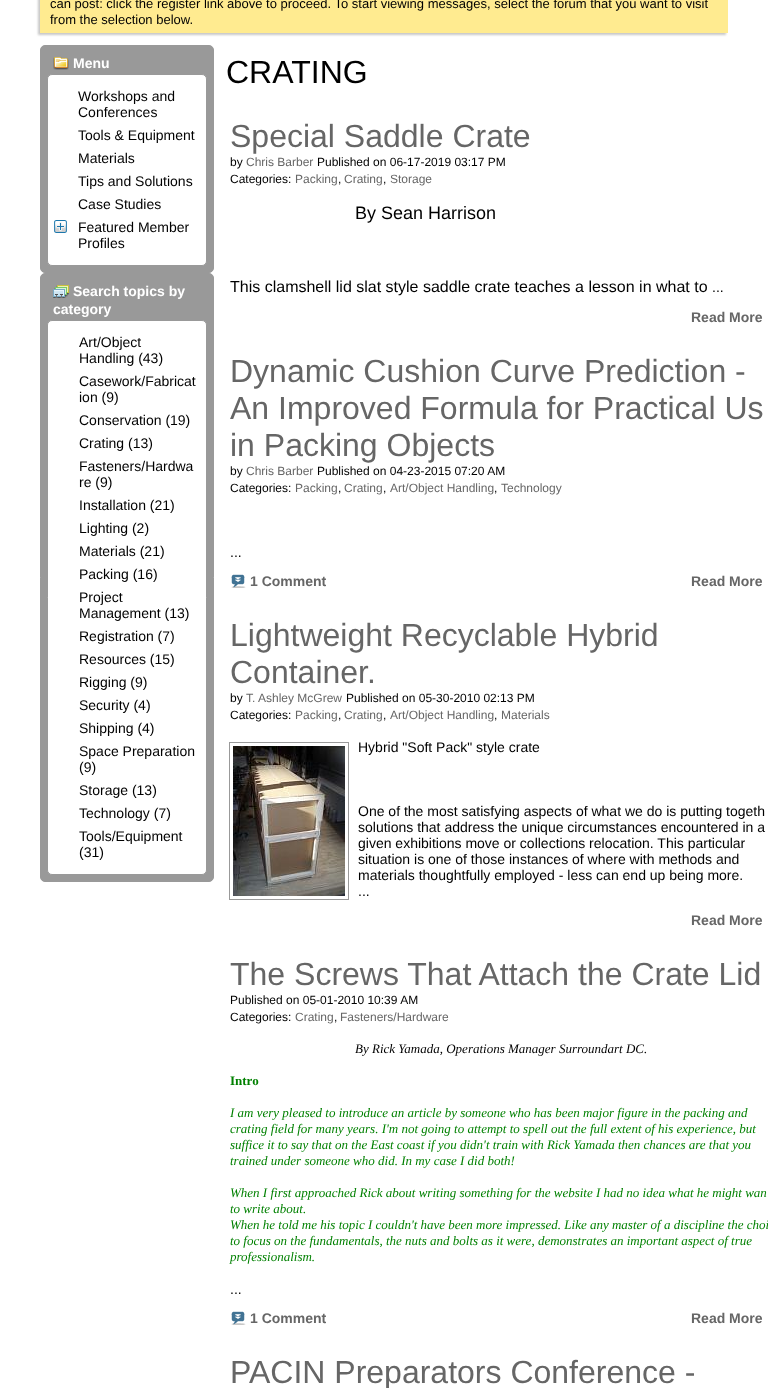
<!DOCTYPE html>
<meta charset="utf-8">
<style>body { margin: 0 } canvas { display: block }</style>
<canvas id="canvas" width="768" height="1388"></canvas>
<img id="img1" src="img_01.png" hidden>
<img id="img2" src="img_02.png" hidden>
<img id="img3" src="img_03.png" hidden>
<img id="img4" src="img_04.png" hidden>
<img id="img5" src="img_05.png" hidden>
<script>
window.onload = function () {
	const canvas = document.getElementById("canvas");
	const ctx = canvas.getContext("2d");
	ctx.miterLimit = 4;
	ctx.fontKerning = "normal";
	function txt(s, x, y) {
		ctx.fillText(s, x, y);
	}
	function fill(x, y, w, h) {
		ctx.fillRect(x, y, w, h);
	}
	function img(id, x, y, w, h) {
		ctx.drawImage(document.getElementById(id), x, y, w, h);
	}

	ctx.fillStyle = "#FFFFFF";
	fill(0, 0, 768, 1388);
	ctx.fillStyle = "#C8C8C8";
	ctx.filter = "blur(1px)";
	ctx.beginPath();
	ctx.rect(38, -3, 688, 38);
	ctx.fill();
	ctx.filter = "none";
	ctx.fillStyle = "#FFEB90";
	fill(40, 0, 688, 33);
	ctx.fillStyle = "#999999";
	ctx.beginPath();
	ctx.roundRect(40.5, 45.5, 173, 227, 4.5);
	ctx.fill();
	ctx.strokeStyle = "#999999";
	ctx.stroke();
	img("img1", 53, 57, 16, 13);
	ctx.fillStyle = "#FFFFFF";
	ctx.beginPath();
	ctx.roundRect(47.5, 74.5, 159, 191, 4.5);
	ctx.fill();
	ctx.stroke();
	img("img2", 54, 220, 13, 13);
	ctx.fillStyle = "#999999";
	ctx.beginPath();
	ctx.roundRect(40.5, 273.5, 173, 608, 4.5);
	ctx.fill();
	ctx.stroke();
	img("img3", 53, 285, 16, 13);
	ctx.fillStyle = "#FFFFFF";
	ctx.beginPath();
	ctx.roundRect(47.5, 320.5, 159, 554, 4.5);
	ctx.fill();
	ctx.stroke();
	img("img4", 231, 574, 15, 14);
	img("img5", 233, 746, 112, 150);
	ctx.strokeRect(229.5, 742.5, 119, 157);
	img("img4", 231, 1311, 15, 14);
	ctx.font = "13px Liberation Sans";
	ctx.fillStyle = "#000000";
	txt("can post: click the register link above to proceed. To start viewing messages, select the forum that you want to visit", 50, 8);
	txt("from the selection below.", 50, 24);
	ctx.font = "bold 14px Liberation Sans";
	ctx.fillStyle = "#FFFFFF";
	txt("Menu", 73, 68);
	ctx.font = "14px Liberation Sans";
	ctx.fillStyle = "#000000";
	txt("Workshops and", 78, 101);
	txt("Conferences", 78, 117);
	txt("Tools & Equipment", 78, 140);
	txt("Materials", 78, 163);
	txt("Tips and Solutions", 78, 186);
	txt("Case Studies", 78, 209);
	txt("Featured Member", 78, 232);
	txt("Profiles", 78, 248);
	ctx.font = "bold 14px Liberation Sans";
	ctx.fillStyle = "#FFFFFF";
	txt("Search topics by", 73, 296);
	txt("category", 53, 314);
	ctx.font = "14px Liberation Sans";
	ctx.fillStyle = "#000000";
	txt("Art/Object", 79, 347);
	txt("Handling (43)", 79, 363);
	txt("Casework/Fabricat", 79, 386);
	txt("ion (9)", 79, 402);
	txt("Conservation (19)", 79, 425);
	txt("Crating (13)", 79, 448);
	txt("Fasteners/Hardwa", 79, 471);
	txt("re (9)", 79, 487);
	txt("Installation (21)", 79, 510);
	txt("Lighting (2)", 79, 533);
	txt("Materials (21)", 79, 556);
	txt("Packing (16)", 79, 579);
	txt("Project", 79, 602);
	txt("Management (13)", 79, 618);
	txt("Registration (7)", 79, 641);
	txt("Resources (15)", 79, 664);
	txt("Rigging (9)", 79, 687);
	txt("Security (4)", 79, 710);
	txt("Shipping (4)", 79, 733);
	txt("Space Preparation", 79, 756);
	txt("(9)", 79, 772);
	txt("Storage (13)", 79, 795);
	txt("Technology (7)", 79, 818);
	txt("Tools/Equipment", 79, 841);
	txt("(31)", 79, 857);
	ctx.font = "32px Liberation Sans";
	txt("CRATING", 226, 83);
	ctx.fillStyle = "#666666";
	txt("Special Saddle Crate", 230, 147);
	ctx.font = "12px Liberation Sans";
	ctx.fillStyle = "#000000";
	txt("by", 230, 166);
	ctx.fillStyle = "#666666";
	txt("Chris Barber", 246, 166);
	ctx.fillStyle = "#000000";
	txt("Published on 06-17-2019 03:17 PM", 317, 166);
	txt("Categories:", 230, 183);
	ctx.fillStyle = "#666666";
	txt("Packing", 295, 183);
	ctx.fillStyle = "#000000";
	txt(",", 338, 183);
	ctx.fillStyle = "#666666";
	txt("Crating", 344, 183);
	ctx.fillStyle = "#000000";
	txt(",", 383, 183);
	ctx.fillStyle = "#666666";
	txt("Storage", 390, 183);
	ctx.font = "18px Liberation Sans";
	ctx.fillStyle = "#000000";
	txt("By Sean Harrison", 355, 219);
	ctx.font = "16px Liberation Sans";
	txt("This clamshell lid slat style saddle crate teaches a lesson in what to", 230, 292);
	ctx.font = "14px Liberation Sans";
	txt("...", 712, 292);
	ctx.font = "bold 14px Liberation Sans";
	ctx.fillStyle = "#666666";
	txt("Read More", 691, 322);
	ctx.font = "32px Liberation Sans";
	txt("Dynamic Cushion Curve Prediction -", 230, 382);
	txt("An Improved Formula for Practical Us", 230, 419);
	txt("in Packing Objects", 230, 456);
	ctx.font = "12px Liberation Sans";
	ctx.fillStyle = "#000000";
	txt("by", 230, 475);
	ctx.fillStyle = "#666666";
	txt("Chris Barber", 246, 475);
	ctx.fillStyle = "#000000";
	txt("Published on 04-23-2015 07:20 AM", 317, 475);
	txt("Categories:", 230, 492);
	ctx.fillStyle = "#666666";
	txt("Packing", 295, 492);
	ctx.fillStyle = "#000000";
	txt(",", 338, 492);
	ctx.fillStyle = "#666666";
	txt("Crating", 344, 492);
	ctx.fillStyle = "#000000";
	txt(",", 383, 492);
	ctx.fillStyle = "#666666";
	txt("Art/Object Handling", 390, 492);
	ctx.fillStyle = "#000000";
	txt(",", 494, 492);
	ctx.fillStyle = "#666666";
	txt("Technology", 501, 492);
	ctx.font = "14px Liberation Sans";
	ctx.fillStyle = "#000000";
	txt("...", 230, 557);
	ctx.font = "bold 14px Liberation Sans";
	ctx.fillStyle = "#666666";
	txt("1 Comment", 250, 586);
	txt("Read More", 691, 586);
	ctx.font = "32px Liberation Sans";
	txt("Lightweight Recyclable Hybrid", 230, 646);
	txt("Container.", 230, 683);
	ctx.font = "12px Liberation Sans";
	ctx.fillStyle = "#000000";
	txt("by", 230, 702);
	ctx.fillStyle = "#666666";
	txt("T. Ashley McGrew", 246, 702);
	ctx.fillStyle = "#000000";
	txt("Published on 05-30-2010 02:13 PM", 346, 702);
	txt("Categories:", 230, 719);
	ctx.fillStyle = "#666666";
	txt("Packing", 295, 719);
	ctx.fillStyle = "#000000";
	txt(",", 338, 719);
	ctx.fillStyle = "#666666";
	txt("Crating", 344, 719);
	ctx.fillStyle = "#000000";
	txt(",", 383, 719);
	ctx.fillStyle = "#666666";
	txt("Art/Object Handling", 390, 719);
	ctx.fillStyle = "#000000";
	txt(",", 494, 719);
	ctx.fillStyle = "#666666";
	txt("Materials", 501, 719);
	ctx.font = "14px Liberation Sans";
	ctx.fillStyle = "#000000";
	txt("Hybrid \"Soft Pack\" style crate", 358, 752);
	txt("One of the most satisfying aspects of what we do is putting togeth", 358, 816);
	txt("solutions that address the unique circumstances encountered in a", 358, 832);
	txt("given exhibitions move or collections relocation. This particular", 358, 848);
	txt("situation is one of those instances of where with methods and", 358, 864);
	txt("materials thoughtfully employed - less can end up being more.", 358, 880);
	txt("...", 358, 896);
	ctx.font = "bold 14px Liberation Sans";
	ctx.fillStyle = "#666666";
	txt("Read More", 691, 925);
	ctx.font = "32px Liberation Sans";
	txt("The Screws That Attach the Crate Lid", 230, 985);
	ctx.font = "12px Liberation Sans";
	ctx.fillStyle = "#000000";
	txt("Published on 05-01-2010 10:39 AM", 230, 1004);
	txt("Categories:", 230, 1021);
	ctx.fillStyle = "#666666";
	txt("Crating", 295, 1021);
	ctx.fillStyle = "#000000";
	txt(",", 334, 1021);
	ctx.fillStyle = "#666666";
	txt("Fasteners/Hardware", 340, 1021);
	ctx.font = "italic 13px Liberation Serif";
	ctx.fillStyle = "#000000";
	txt("By Rick Yamada, Operations Manager Surroundart DC.", 355, 1053);
	ctx.font = "bold 13px Liberation Serif";
	ctx.fillStyle = "#008000";
	txt("Intro", 230, 1085);
	ctx.font = "italic 13px Liberation Serif";
	txt("I am very pleased to introduce an article by someone who has been major figure in the packing and", 230, 1117);
	txt("crating field for many years. I'm not going to attempt to spell out the full extent of his experience, but", 230, 1133);
	txt("suffice it to say that on the East coast if you didn't train with Rick Yamada then chances are that you", 230, 1149);
	txt("trained under someone who did. In my case I did both!", 230, 1165);
	txt("When I first approached Rick about writing something for the website I had no idea what he might wan", 230, 1197);
	txt("to write about.", 230, 1213);
	txt("When he told me his topic I couldn't have been more impressed. Like any master of a discipline the choi", 230, 1229);
	txt("to focus on the fundamentals, the nuts and bolts as it were, demonstrates an important aspect of true", 230, 1245);
	txt("professionalism.", 230, 1261);
	ctx.font = "14px Liberation Sans";
	ctx.fillStyle = "#000000";
	txt("...", 230, 1294);
	ctx.font = "bold 14px Liberation Sans";
	ctx.fillStyle = "#666666";
	txt("1 Comment", 250, 1323);
	txt("Read More", 691, 1323);
	ctx.font = "32px Liberation Sans";
	txt("PACIN Preparators Conference -", 230, 1383);
};
</script>
